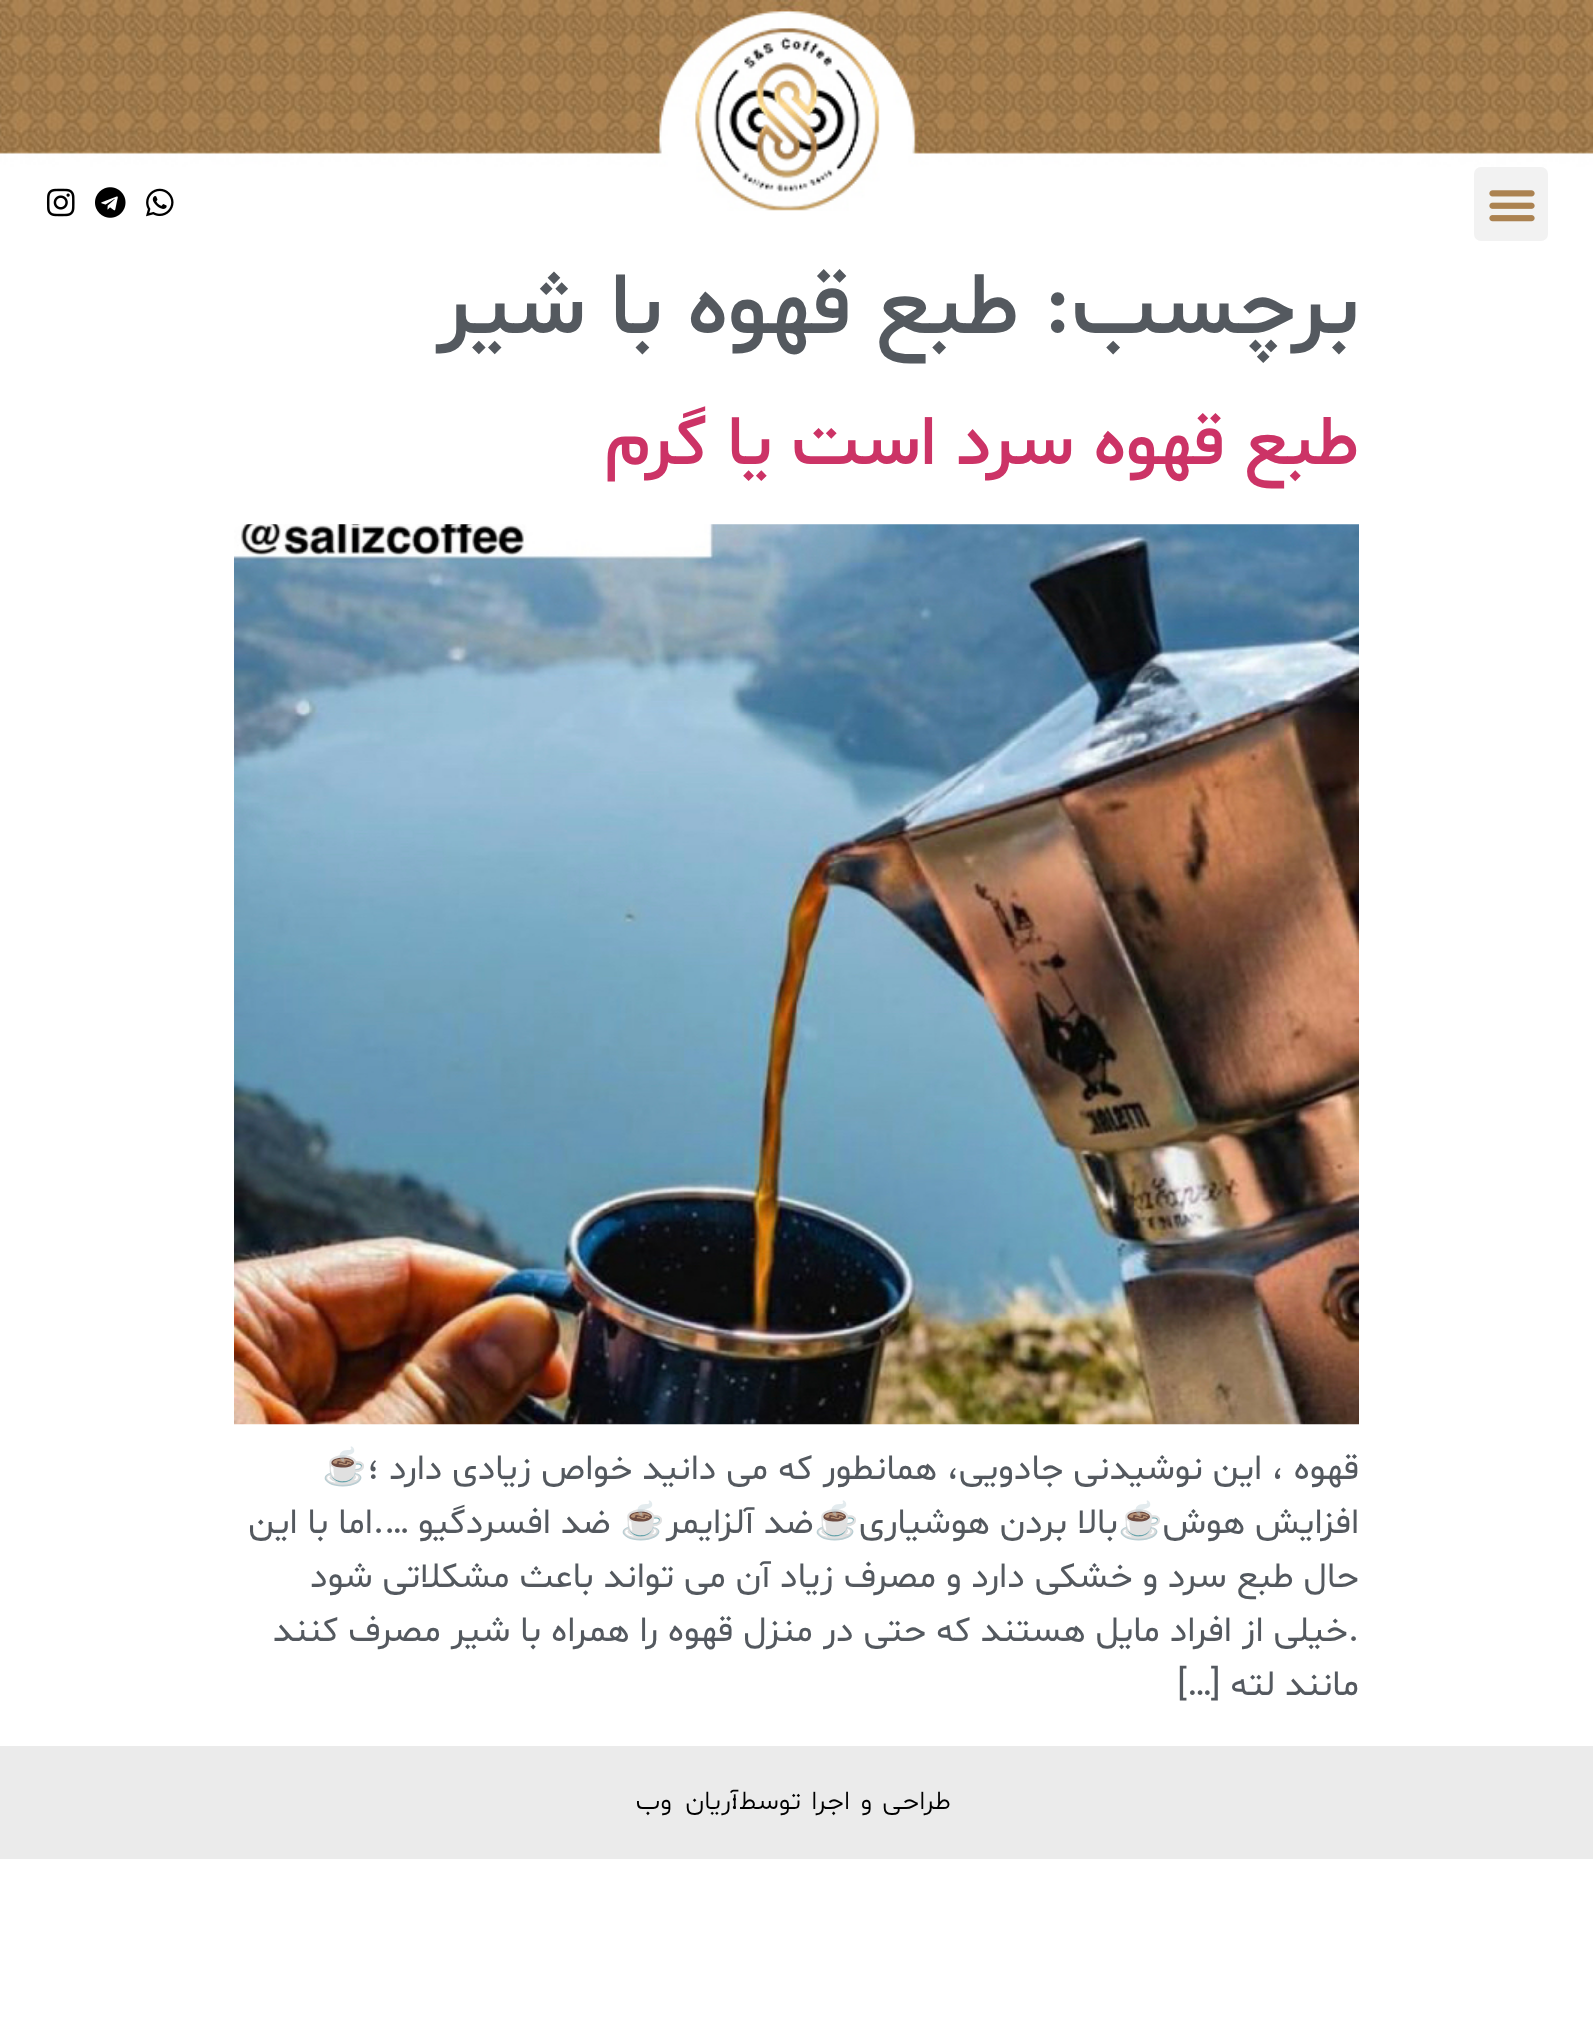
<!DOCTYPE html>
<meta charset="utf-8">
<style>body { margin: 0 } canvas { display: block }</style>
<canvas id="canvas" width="1593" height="2027"></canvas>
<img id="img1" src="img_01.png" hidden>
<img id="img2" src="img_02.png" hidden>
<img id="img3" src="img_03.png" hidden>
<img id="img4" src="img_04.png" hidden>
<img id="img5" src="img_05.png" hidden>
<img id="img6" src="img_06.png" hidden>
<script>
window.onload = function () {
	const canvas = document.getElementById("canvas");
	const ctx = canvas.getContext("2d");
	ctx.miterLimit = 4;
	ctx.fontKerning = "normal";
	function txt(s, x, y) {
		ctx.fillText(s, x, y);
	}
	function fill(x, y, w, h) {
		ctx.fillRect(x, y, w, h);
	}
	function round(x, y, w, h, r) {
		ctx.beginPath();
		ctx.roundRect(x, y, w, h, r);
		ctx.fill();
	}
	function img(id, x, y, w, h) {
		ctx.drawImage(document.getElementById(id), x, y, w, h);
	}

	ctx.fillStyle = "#FFFFFF";
	fill(0, 0, 1593, 2027);
	img("img1", 0, 0, 1593, 211);
	ctx.fillStyle = "#F2F2F2";
	round(1474, 167, 74, 74, 7);
	img("img2", 1489, 190, 46, 32);
	img("img3", 146, 188, 28, 29);
	img("img4", 95, 187, 31, 31);
	img("img5", 46, 188, 29, 29);
	img("img6", 234, 524, 1125, 901);
	ctx.fillStyle = "#EBEBEB";
	fill(0, 1746, 1593, 113);
	ctx.direction = "rtl";
	ctx.font = "500 90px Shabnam";
	ctx.fillStyle = "#54595F";
	txt("برچسب:", 1359, 333);
	txt("طبع قهوه با شیر", 1019, 333);
	ctx.font = "500 72px Shabnam";
	ctx.fillStyle = "#CC3366";
	txt("طبع قهوه سرد است یا گرم", 1359, 464);
	ctx.font = "36px Shabnam";
	ctx.fillStyle = "#54595F";
	txt("قهوه ، این نوشیدنی جادویی، همانطور که می دانید خواص زیادی دارد ؛", 1359, 1479);
	ctx.font = "36px Noto Color Emoji";
	txt("☕️", 367, 1479);
	ctx.font = "36px Shabnam";
	txt("افزایش هوش", 1359, 1533);
	ctx.font = "36px Noto Color Emoji";
	txt("☕️", 1163, 1533);
	ctx.font = "36px Shabnam";
	txt("بالا بردن هوشیاری", 1118, 1533);
	ctx.font = "36px Noto Color Emoji";
	txt("☕️", 859, 1533);
	ctx.font = "36px Shabnam";
	txt("ضد آلزایمر", 814, 1533);
	ctx.font = "36px Noto Color Emoji";
	txt("☕️", 665, 1533);
	ctx.font = "36px Shabnam";
	txt("ضد افسردگیو ….اما با این", 611, 1533);
	txt("حال طبع سرد و خشکی دارد و مصرف زیاد آن می تواند باعث مشکلاتی شود", 1359, 1587);
	txt(".خیلی از افراد مایل هستند که حتی در منزل قهوه را همراه با شیر مصرف کنند", 1359, 1641);
	txt("مانند لته […]", 1359, 1695);
	ctx.letterSpacing = "-1px";
	ctx.wordSpacing = "4px";
	ctx.font = "300 27px Shabnam";
	ctx.fillStyle = "#000000";
	txt("طراحی و اجرا توسط:", 951, 1809);
	ctx.wordSpacing = "7px";
	txt("آریان وب", 738, 1809);
};
</script>
